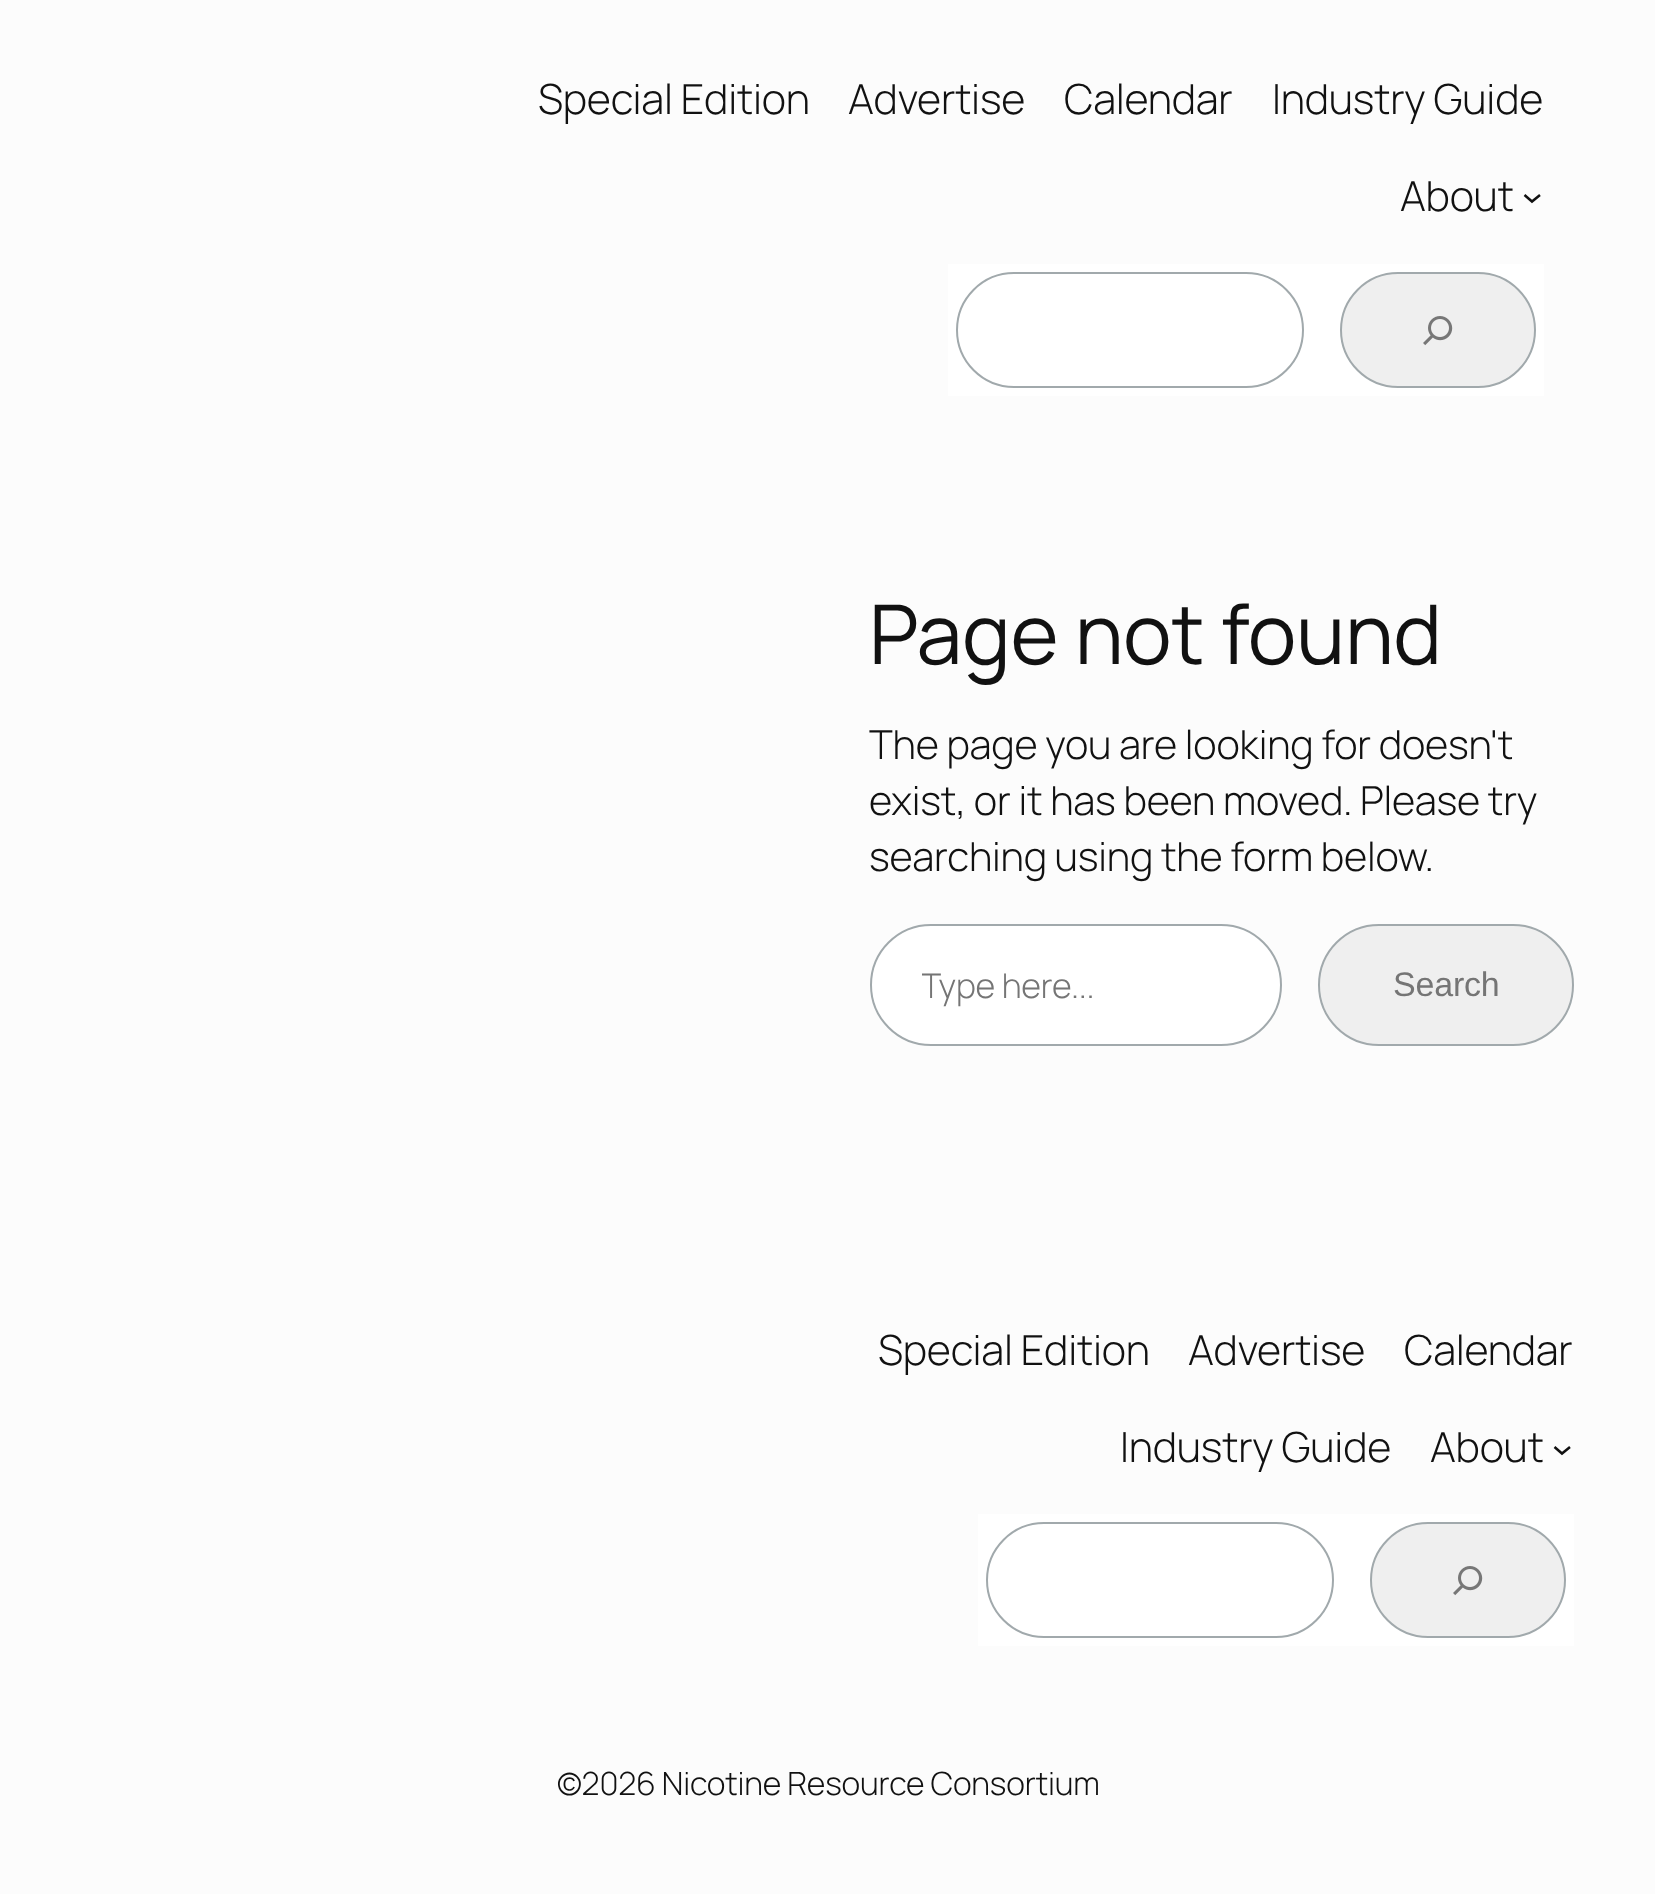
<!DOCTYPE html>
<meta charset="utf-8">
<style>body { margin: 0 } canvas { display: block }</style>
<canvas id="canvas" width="1655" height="1894"></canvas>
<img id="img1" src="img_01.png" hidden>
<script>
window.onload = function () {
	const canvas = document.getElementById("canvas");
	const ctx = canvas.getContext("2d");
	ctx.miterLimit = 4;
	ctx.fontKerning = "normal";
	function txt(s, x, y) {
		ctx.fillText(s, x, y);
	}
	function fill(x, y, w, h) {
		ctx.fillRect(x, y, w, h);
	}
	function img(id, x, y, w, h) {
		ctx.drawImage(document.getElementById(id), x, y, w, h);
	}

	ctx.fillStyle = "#FCFCFC";
	fill(0, 0, 1655, 1894);
	ctx.beginPath();
	ctx.moveTo(1524.5, 195);
	ctx.lineTo(1532, 201.5);
	ctx.lineTo(1540, 195);
	ctx.strokeStyle = "#111111";
	ctx.lineWidth = 2.5;
	ctx.stroke();
	ctx.fillStyle = "#FFFFFF";
	fill(948, 264, 596, 132);
	ctx.beginPath();
	ctx.roundRect(957, 273, 346, 114, 57);
	ctx.strokeStyle = "#A1A9AC";
	ctx.lineWidth = 2;
	ctx.stroke();
	ctx.fillStyle = "#EFEFEF";
	ctx.beginPath();
	ctx.roundRect(1341, 273, 194, 114, 57);
	ctx.fill();
	ctx.stroke();
	img("img1", 1423, 316, 30, 30);
	ctx.fillStyle = "#FFFFFF";
	ctx.beginPath();
	ctx.roundRect(871, 925, 410, 120, 60);
	ctx.fill();
	ctx.stroke();
	ctx.fillStyle = "#EFEFEF";
	ctx.beginPath();
	ctx.roundRect(1319, 925, 254, 120, 60);
	ctx.fill();
	ctx.stroke();
	ctx.beginPath();
	ctx.moveTo(1554.5, 1447);
	ctx.lineTo(1562, 1453.5);
	ctx.lineTo(1570, 1447);
	ctx.strokeStyle = "#111111";
	ctx.lineWidth = 2.5;
	ctx.stroke();
	ctx.fillStyle = "#FFFFFF";
	fill(978, 1514, 596, 132);
	ctx.beginPath();
	ctx.roundRect(987, 1523, 346, 114, 57);
	ctx.strokeStyle = "#A1A9AC";
	ctx.lineWidth = 2;
	ctx.stroke();
	ctx.fillStyle = "#EFEFEF";
	ctx.beginPath();
	ctx.roundRect(1371, 1523, 194, 114, 57);
	ctx.fill();
	ctx.stroke();
	img("img1", 1453, 1566, 30, 30);
	ctx.letterSpacing = "-0.2px";
	ctx.font = "300 41.5px Manrope";
	ctx.fillStyle = "#111111";
	txt("Special Edition", 538, 114);
	txt("Advertise", 848, 114);
	txt("Calendar", 1064, 114);
	txt("Industry Guide", 1272, 114);
	txt("About", 1400, 211);
	ctx.font = "82.25px Manrope";
	txt("Page not found", 869, 664);
	ctx.font = "300 40px Manrope";
	txt("The page you are looking for doesn't", 869, 759);
	txt("exist, or it has been moved. Please try", 869, 815);
	txt("searching using the form below.", 869, 871);
	ctx.save();
	ctx.beginPath();
	ctx.rect(922, 962, 276, 46);
	ctx.clip();
	ctx.font = "300 34px Manrope";
	ctx.fillStyle = "#757575";
	txt("Type here...", 921, 998);
	ctx.restore();
	ctx.font = "34px Liberation Sans";
	ctx.fillStyle = "#757575";
	txt("Search", 1393, 996);
	ctx.font = "300 41.5px Manrope";
	ctx.fillStyle = "#111111";
	txt("Special Edition", 878, 1365);
	txt("Advertise", 1188, 1365);
	txt("Calendar", 1404, 1365);
	txt("Industry Guide", 1120, 1462);
	txt("About", 1430, 1462);
	ctx.font = "300 32px Manrope";
	txt("©2026 Nicotine Resource Consortium", 557, 1795);
};
</script>
